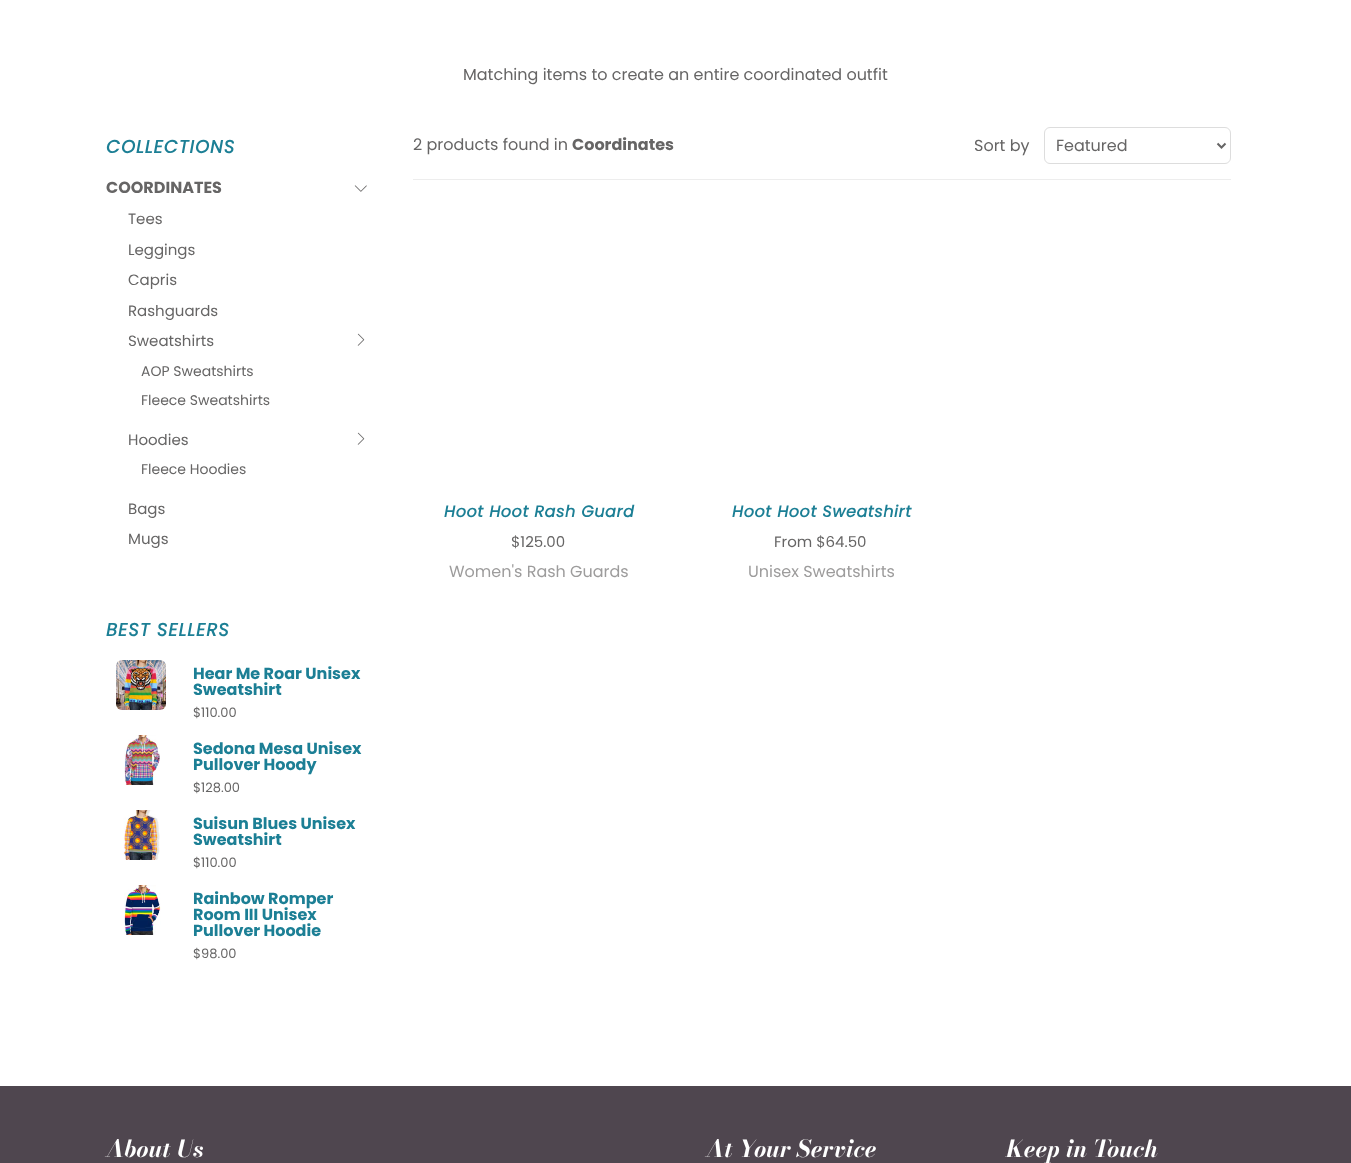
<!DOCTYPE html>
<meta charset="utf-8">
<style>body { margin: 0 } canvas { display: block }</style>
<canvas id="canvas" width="1351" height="1163"></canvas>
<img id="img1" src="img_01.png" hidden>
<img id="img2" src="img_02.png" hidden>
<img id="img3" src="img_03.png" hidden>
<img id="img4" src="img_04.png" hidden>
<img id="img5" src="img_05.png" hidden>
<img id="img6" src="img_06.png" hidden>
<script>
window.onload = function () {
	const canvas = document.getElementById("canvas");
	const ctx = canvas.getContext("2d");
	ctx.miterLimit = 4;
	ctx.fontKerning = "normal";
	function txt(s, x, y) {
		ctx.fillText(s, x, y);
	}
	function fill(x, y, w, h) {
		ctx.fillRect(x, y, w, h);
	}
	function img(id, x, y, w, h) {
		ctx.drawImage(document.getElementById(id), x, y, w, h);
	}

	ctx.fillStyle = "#FFFFFF";
	fill(0, 0, 1351, 1163);
	img("img1", 354, 185, 13, 7);
	img("img2", 357, 333, 8, 13);
	img("img2", 357, 432, 8, 13);
	img("img3", 116, 660, 50, 50);
	img("img4", 124, 735, 36, 50);
	img("img5", 123, 810, 37, 50);
	img("img6", 124, 885, 37, 50);
	ctx.fillStyle = "#EDEDED";
	fill(413, 179, 818, 1);
	ctx.beginPath();
	ctx.roundRect(1044.5, 127.5, 186, 36, 5.5);
	ctx.strokeStyle = "#DDDDDD";
	ctx.stroke();
	ctx.beginPath();
	ctx.moveTo(1217.5, 143.5);
	ctx.lineTo(1221.5, 147.5);
	ctx.lineTo(1225.5, 143.5);
	ctx.strokeStyle = "#666565";
	ctx.lineWidth = 2;
	ctx.stroke();
	ctx.fillStyle = "#4F464F";
	fill(0, 1086, 1351, 77);
	ctx.font = "16px Poppins";
	ctx.fillStyle = "#666565";
	txt("Matching items to create an entire coordinated outfit", 463, 80);
	ctx.letterSpacing = "1px";
	ctx.font = "italic bold 18px Poppins";
	ctx.fillStyle = "#1C7F95";
	txt("COLLECTIONS", 106, 153);
	ctx.letterSpacing = "0px";
	ctx.font = "bold 16px Poppins";
	ctx.fillStyle = "#666565";
	txt("COORDINATES", 106, 193);
	ctx.font = "15px Poppins";
	txt("Tees", 128, 224);
	txt("Leggings", 128, 255);
	txt("Capris", 128, 285);
	txt("Rashguards", 128, 316);
	txt("Sweatshirts", 128, 346);
	ctx.font = "14px Poppins";
	txt("AOP Sweatshirts", 141, 376);
	txt("Fleece Sweatshirts", 141, 405);
	ctx.font = "15px Poppins";
	txt("Hoodies", 128, 445);
	ctx.font = "14px Poppins";
	txt("Fleece Hoodies", 141, 474);
	ctx.font = "15px Poppins";
	txt("Bags", 128, 514);
	txt("Mugs", 128, 544);
	ctx.letterSpacing = "1px";
	ctx.font = "italic bold 18px Poppins";
	ctx.fillStyle = "#1C7F95";
	txt("BEST SELLERS", 106, 636);
	ctx.letterSpacing = "0px";
	ctx.font = "bold 16px Poppins";
	txt("Hear Me Roar Unisex", 193, 679);
	txt("Sweatshirt", 193, 695);
	ctx.font = "13px Poppins";
	ctx.fillStyle = "#666565";
	txt("$110.00", 193, 717);
	ctx.font = "bold 16px Poppins";
	ctx.fillStyle = "#1C7F95";
	txt("Sedona Mesa Unisex", 193, 754);
	txt("Pullover Hoody", 193, 770);
	ctx.font = "13px Poppins";
	ctx.fillStyle = "#666565";
	txt("$128.00", 193, 792);
	ctx.font = "bold 16px Poppins";
	ctx.fillStyle = "#1C7F95";
	txt("Suisun Blues Unisex", 193, 829);
	txt("Sweatshirt", 193, 845);
	ctx.font = "13px Poppins";
	ctx.fillStyle = "#666565";
	txt("$110.00", 193, 867);
	ctx.font = "bold 16px Poppins";
	ctx.fillStyle = "#1C7F95";
	txt("Rainbow Romper", 193, 904);
	txt("Room III Unisex", 193, 920);
	txt("Pullover Hoodie", 193, 936);
	ctx.font = "13px Poppins";
	ctx.fillStyle = "#666565";
	txt("$98.00", 193, 958);
	ctx.font = "16px Poppins";
	txt("2 products found in", 413, 150);
	ctx.font = "bold 16px Poppins";
	txt("Coordinates", 572, 150);
	ctx.font = "16px Poppins";
	txt("Sort by", 974, 151);
	txt("Featured", 1056, 151);
	ctx.letterSpacing = "0.6px";
	ctx.font = "italic bold 16px Poppins";
	ctx.fillStyle = "#1C7F95";
	txt("Hoot Hoot Rash Guard", 444, 517);
	ctx.letterSpacing = "0px";
	ctx.font = "15px Poppins";
	ctx.fillStyle = "#666565";
	txt("$125.00", 511, 547);
	ctx.font = "16px Poppins";
	ctx.fillStyle = "#9D9C9C";
	txt("Women's Rash Guards", 449, 577);
	ctx.letterSpacing = "0.6px";
	ctx.font = "italic bold 16px Poppins";
	ctx.fillStyle = "#1C7F95";
	txt("Hoot Hoot Sweatshirt", 732, 517);
	ctx.letterSpacing = "0px";
	ctx.font = "15px Poppins";
	ctx.fillStyle = "#666565";
	txt("From $64.50", 774, 547);
	ctx.font = "16px Poppins";
	ctx.fillStyle = "#9D9C9C";
	txt("Unisex Sweatshirts", 748, 577);
	ctx.font = "italic bold 23.5px Bodoni Moda";
	ctx.fillStyle = "#FFFFFF";
	txt("About Us", 106, 1157);
	txt("At Your Service", 706, 1157);
	txt("Keep in Touch", 1006, 1157);
};
</script>
